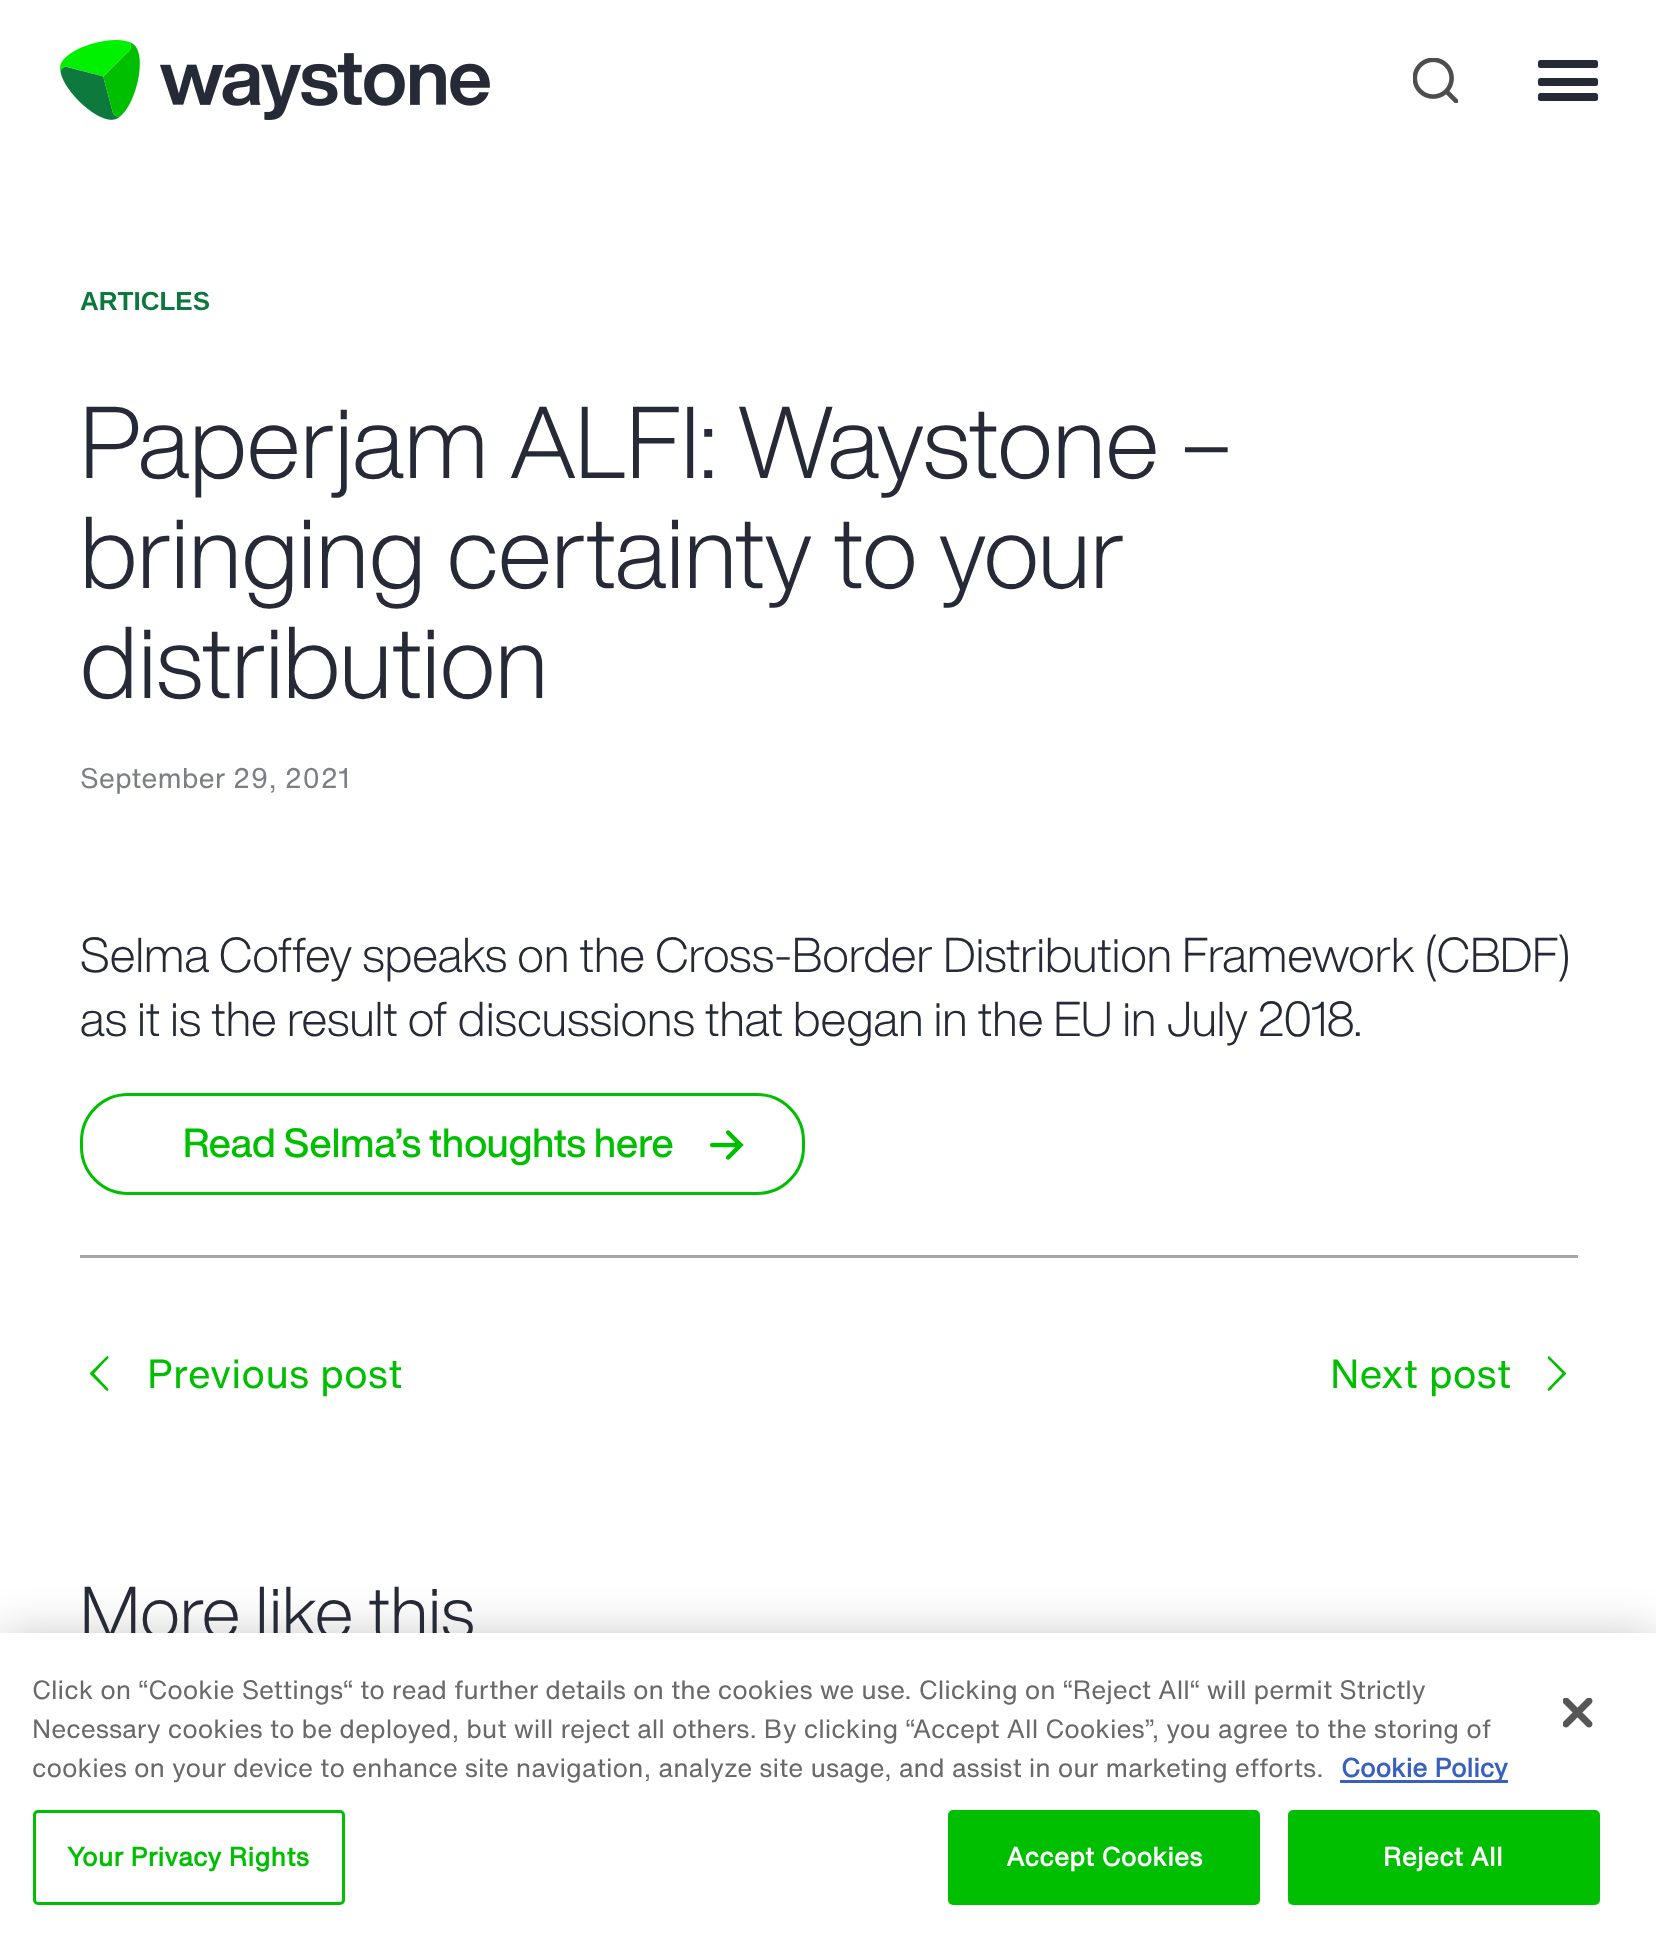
<!DOCTYPE html>
<meta charset="utf-8">
<style>body { margin: 0 } canvas { display: block }</style>
<canvas id="canvas" width="1656" height="1937"></canvas>
<img id="img1" src="img_01.png" hidden>
<img id="img2" src="img_02.png" hidden>
<img id="img3" src="img_03.png" hidden>
<img id="img4" src="img_04.png" hidden>
<script>
window.onload = function () {
	const canvas = document.getElementById("canvas");
	const ctx = canvas.getContext("2d");
	ctx.miterLimit = 4;
	ctx.fontKerning = "normal";
	function txt(s, x, y) {
		ctx.fillText(s, x, y);
	}
	function fill(x, y, w, h) {
		ctx.fillRect(x, y, w, h);
	}
	function round(x, y, w, h, r) {
		ctx.beginPath();
		ctx.roundRect(x, y, w, h, r);
		ctx.fill();
	}
	function img(id, x, y, w, h) {
		ctx.drawImage(document.getElementById(id), x, y, w, h);
	}

	ctx.fillStyle = "#FFFFFF";
	fill(0, 0, 1656, 1937);
	img("img1", 60, 40, 430, 80);
	img("img2", 1413, 58, 45, 45);
	ctx.fillStyle = "#252A36";
	round(1538, 60, 60, 8, 2.5);
	round(1538, 78, 60, 8, 2.5);
	round(1538, 93, 60, 8, 2.5);
	ctx.beginPath();
	ctx.roundRect(81.5, 1094.5, 722, 99, 46.5);
	ctx.strokeStyle = "#00BF00";
	ctx.lineWidth = 3;
	ctx.stroke();
	img("img3", 710, 1130, 34, 30);
	ctx.fillStyle = "#A6A6A6";
	fill(80, 1255, 1498, 3);
	ctx.fillStyle = "#00BF00";
	ctx.beginPath();
	ctx.moveTo(108, 1388.5);
	ctx.lineTo(108.5, 1389.5);
	ctx.bezierCurveTo(107.5, 1393, 104, 1388, 103.5, 1387.5);
	ctx.lineTo(90, 1374);
	ctx.lineTo(90, 1373);
	ctx.lineTo(106.5, 1356.5);
	ctx.lineTo(107.5, 1356);
	ctx.bezierCurveTo(110.5, 1357, 106, 1360.5, 105.5, 1361);
	ctx.lineTo(94, 1373.5);
	ctx.closePath();
	ctx.fill();
	ctx.beginPath();
	ctx.moveTo(1548, 1388.5);
	ctx.lineTo(1562.5, 1373.5);
	ctx.lineTo(1550.5, 1361);
	ctx.bezierCurveTo(1550, 1360.5, 1545.5, 1357, 1549, 1356);
	ctx.lineTo(1549.5, 1356.5);
	ctx.lineTo(1566, 1373);
	ctx.lineTo(1566, 1374);
	ctx.lineTo(1552.5, 1387.5);
	ctx.bezierCurveTo(1552.5, 1388, 1548.5, 1393, 1547.5, 1389.5);
	ctx.closePath();
	ctx.fill();
	ctx.fillStyle = "rgba(0, 0, 0, 0.2)";
	ctx.filter = "blur(22.5px)";
	ctx.beginPath();
	ctx.rect(0, 1633, 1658, 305);
	ctx.fill();
	ctx.filter = "none";
	ctx.font = "bold 26px Liberation Sans";
	ctx.fillStyle = "#0D783D";
	txt("ARTICLES", 80, 310);
	ctx.font = "300 100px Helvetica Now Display";
	ctx.fillStyle = "#252A36";
	txt("Paperjam ALFI: Waystone –", 80, 478);
	txt("bringing certainty to your", 80, 588);
	txt("distribution", 80, 698);
	ctx.font = "28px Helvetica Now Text";
	ctx.fillStyle = "#7C7F86";
	txt("September 29, 2021", 80, 788);
	ctx.font = "300 48px Helvetica Now Display";
	ctx.fillStyle = "#252A36";
	txt("Selma Coffey speaks on the Cross-Border Distribution Framework (CBDF)", 80, 972);
	txt("as it is the result of discussions that began in the EU in July 2018.", 80, 1036);
	ctx.font = "500 40px Helvetica Now Display";
	ctx.fillStyle = "#00BF00";
	txt("Read Selma’s thoughts here", 183, 1157);
	ctx.font = "40px Helvetica Now Text";
	txt("Previous post", 147, 1388);
	txt("Next post", 1330, 1388);
	ctx.font = "300 72px Helvetica Now Display";
	ctx.fillStyle = "#252A36";
	txt("More like this", 80, 1638);
	ctx.fillStyle = "#FFFFFF";
	fill(0, 1633, 1656, 304);
	ctx.font = "26.02px Helvetica Now Text";
	ctx.fillStyle = "#696969";
	txt("Click on “Cookie Settings“ to read further details on the cookies we use. Clicking on “Reject All“ will permit Strictly", 32, 1699);
	txt("Necessary cookies to be deployed, but will reject all others. By clicking “Accept All Cookies”, you agree to the storing of", 32, 1738);
	txt("cookies on your device to enhance site navigation, analyze site usage, and assist in our marketing efforts.", 32, 1777);
	ctx.fillStyle = "#3860BE";
	fill(1340, 1780, 168, 3);
	ctx.font = "bold 26.02px Helvetica Now Text";
	txt("Cookie Policy", 1341, 1777);
	ctx.beginPath();
	ctx.roundRect(34.5, 1811.5, 309, 92, 3.5);
	ctx.stroke();
	ctx.letterSpacing = "0.25px";
	ctx.fillStyle = "#00BF00";
	txt("Your Privacy Rights", 67, 1866);
	ctx.beginPath();
	ctx.roundRect(949.5, 1811.5, 309, 92, 3.5);
	ctx.fill();
	ctx.stroke();
	ctx.fillStyle = "#FFFFFF";
	txt("Accept Cookies", 1006, 1866);
	ctx.fillStyle = "#00BF00";
	ctx.beginPath();
	ctx.roundRect(1289.5, 1811.5, 309, 92, 3.5);
	ctx.fill();
	ctx.stroke();
	ctx.fillStyle = "#FFFFFF";
	txt("Reject All", 1383, 1866);
	img("img4", 1563, 1698, 30, 30);
};
</script>
